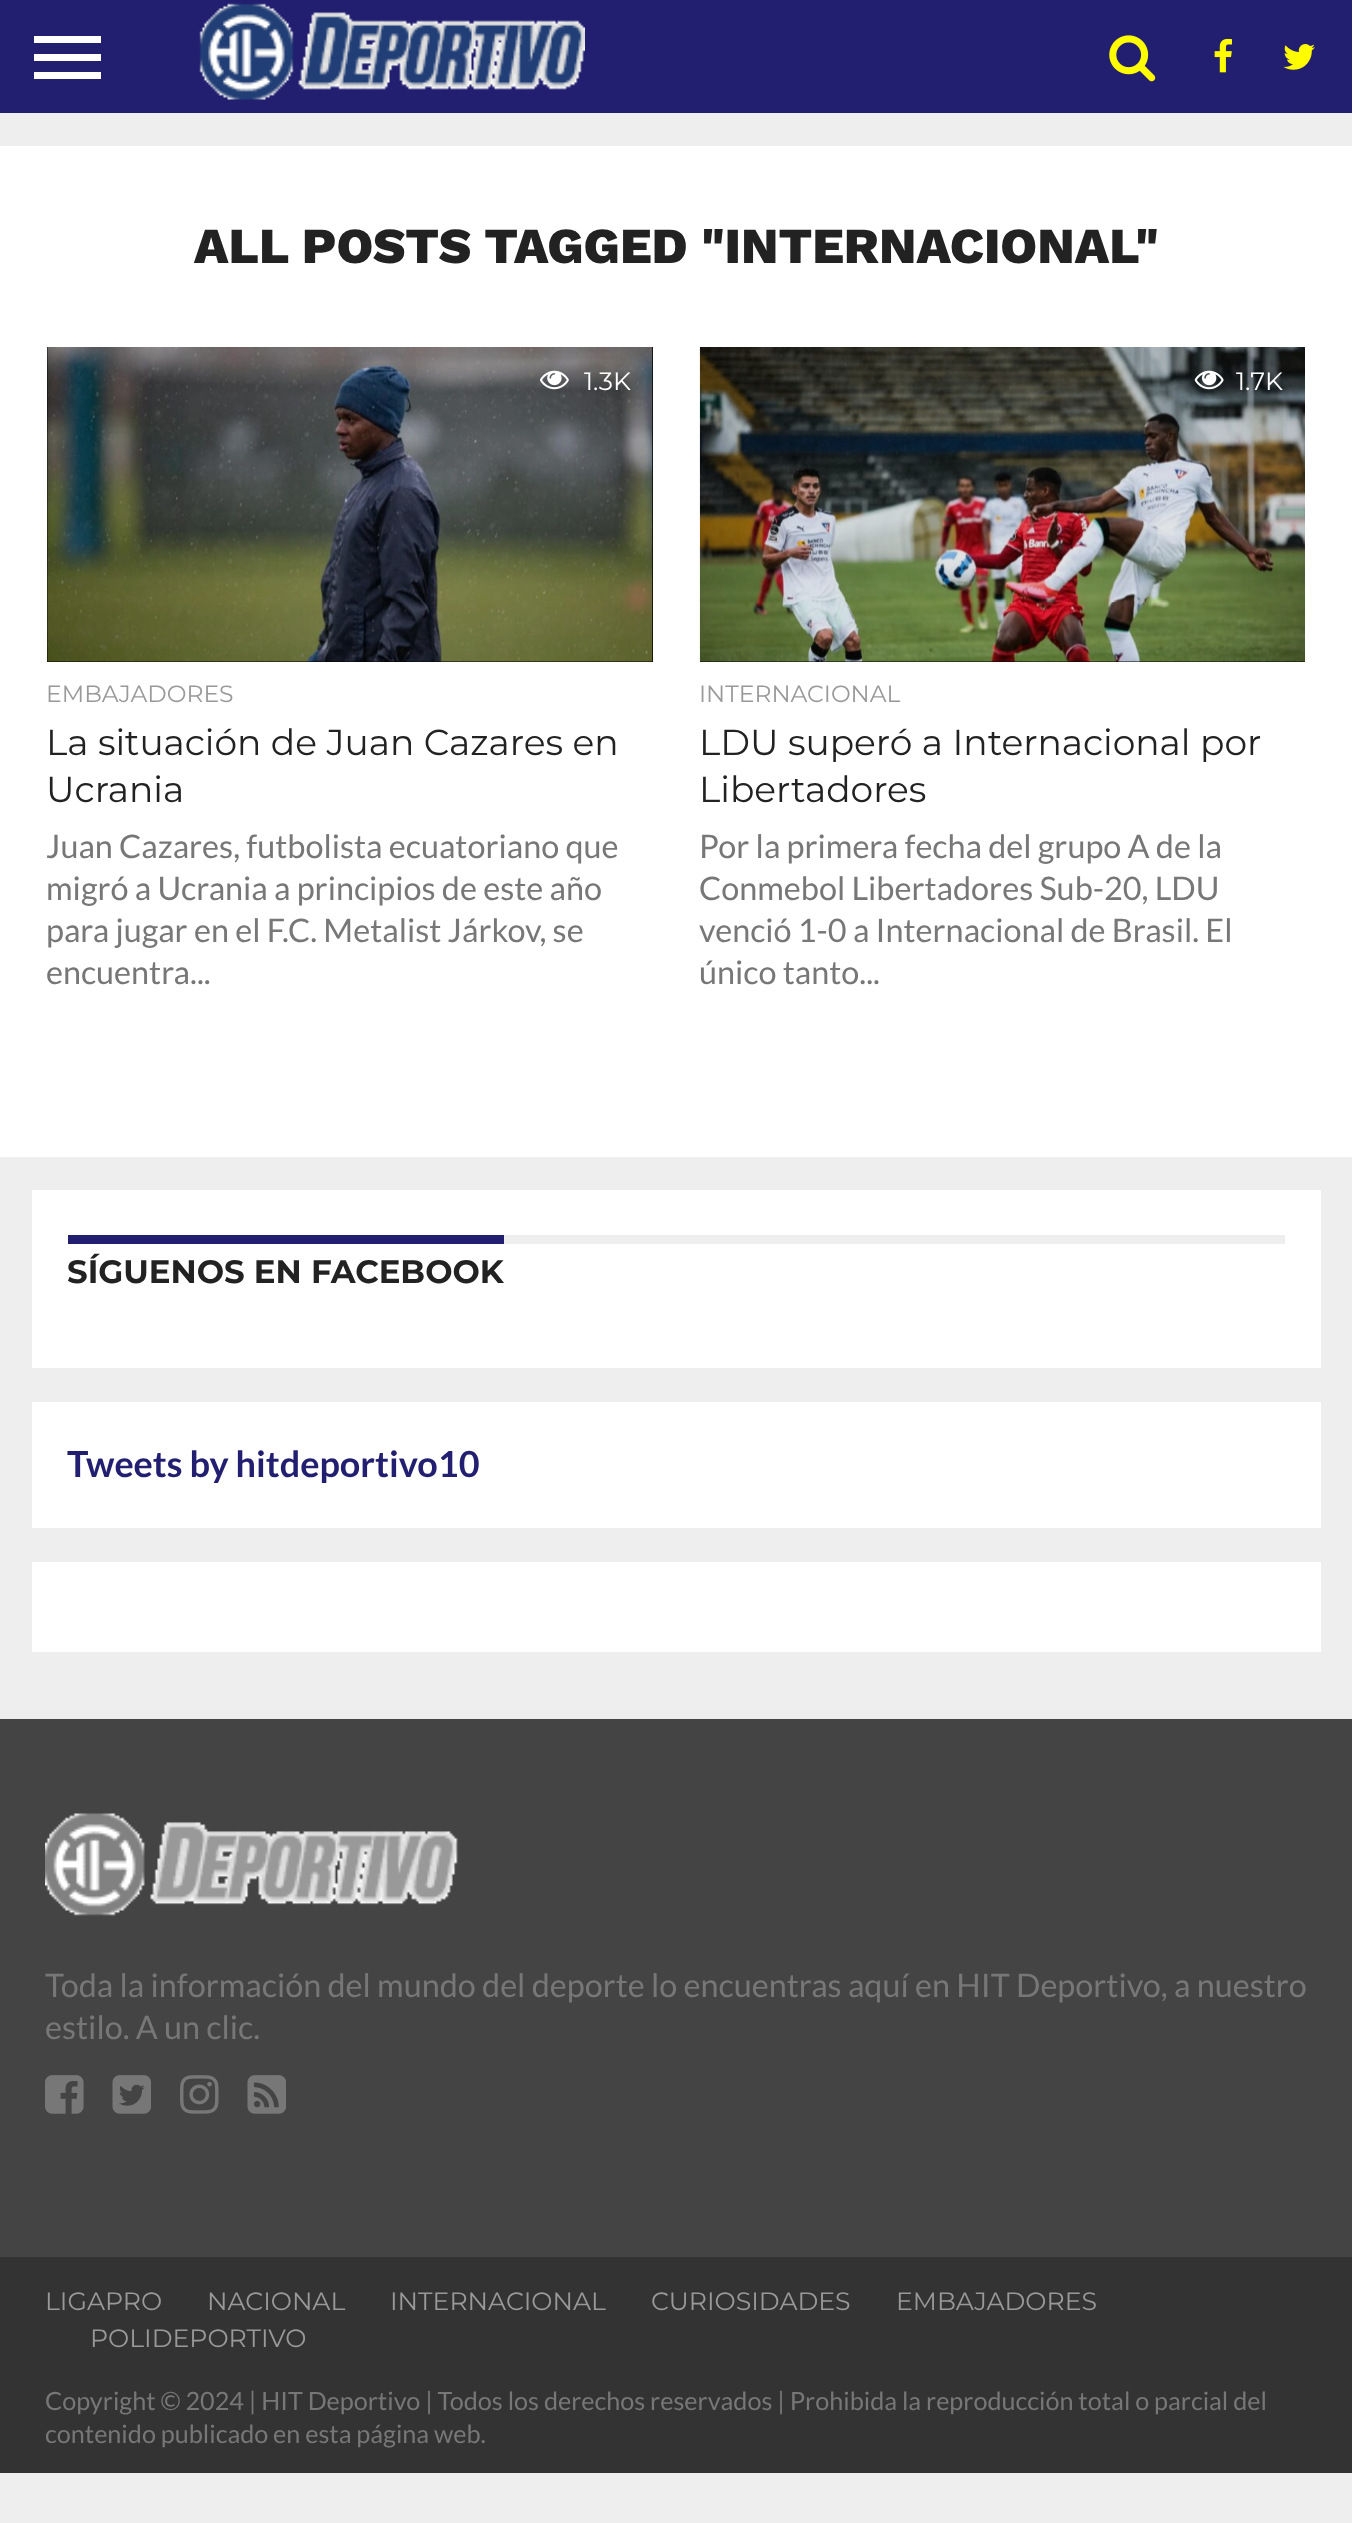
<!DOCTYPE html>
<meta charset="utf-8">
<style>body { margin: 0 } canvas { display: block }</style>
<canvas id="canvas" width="1352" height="2523"></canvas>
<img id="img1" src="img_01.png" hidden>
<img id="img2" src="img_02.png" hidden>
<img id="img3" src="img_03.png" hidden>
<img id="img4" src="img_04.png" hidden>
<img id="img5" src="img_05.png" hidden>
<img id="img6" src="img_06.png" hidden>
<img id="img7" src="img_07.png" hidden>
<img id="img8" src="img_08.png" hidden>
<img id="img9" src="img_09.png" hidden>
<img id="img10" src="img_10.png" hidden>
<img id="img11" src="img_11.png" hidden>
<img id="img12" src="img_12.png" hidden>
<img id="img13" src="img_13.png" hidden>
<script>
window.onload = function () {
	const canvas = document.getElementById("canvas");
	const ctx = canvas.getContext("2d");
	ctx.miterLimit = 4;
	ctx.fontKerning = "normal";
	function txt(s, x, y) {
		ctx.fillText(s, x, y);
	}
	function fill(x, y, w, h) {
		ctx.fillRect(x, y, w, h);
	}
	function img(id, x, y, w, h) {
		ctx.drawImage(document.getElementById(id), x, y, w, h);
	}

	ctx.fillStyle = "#EEEEEE";
	fill(0, 0, 1352, 2523);
	ctx.fillStyle = "#221F70";
	fill(0, 0, 1352, 113);
	ctx.fillStyle = "#FFFFFF";
	fill(34, 36, 67, 7);
	fill(34, 54, 67, 7);
	fill(34, 72, 67, 7);
	img("img1", 199, 3, 386, 97);
	img("img2", 1109, 35, 47, 47);
	img("img3", 1214, 38, 18, 35);
	img("img4", 1283, 44, 32, 26);
	fill(0, 146, 1352, 1011);
	ctx.fillStyle = "#000000";
	fill(47, 347, 606, 315);
	img("img5", 47, 347, 606, 315);
	img("img6", 540, 370, 29, 20);
	fill(700, 347, 605, 315);
	img("img7", 699, 347, 606, 315);
	img("img8", 1194, 370, 30, 20);
	ctx.fillStyle = "#FFFFFF";
	fill(32, 1190, 1289, 178);
	ctx.fillStyle = "#EEEEEE";
	fill(504, 1235, 781, 9);
	ctx.fillStyle = "#221F70";
	fill(68, 1235, 436, 9);
	ctx.fillStyle = "#FFFFFF";
	fill(32, 1402, 1289, 126);
	fill(32, 1562, 1289, 90);
	ctx.fillStyle = "#444444";
	fill(0, 1719, 1352, 538);
	img("img9", 45, 1813, 413, 103);
	img("img10", 45, 2075, 39, 39);
	img("img11", 112, 2075, 39, 39);
	img("img12", 180, 2075, 39, 39);
	img("img13", 247, 2075, 39, 39);
	ctx.fillStyle = "#333333";
	fill(0, 2257, 1352, 216);
	ctx.font = "800 50.4px Work Sans";
	ctx.fillStyle = "#222222";
	txt("ALL POSTS TAGGED \"INTERNACIONAL\"", 194, 263);
	ctx.font = "25.2px Montserrat";
	ctx.fillStyle = "#FFFFFF";
	txt("1.3K", 584, 390);
	ctx.font = "23.5px Montserrat";
	ctx.fillStyle = "#999999";
	txt("EMBAJADORES", 46, 702);
	ctx.font = "36px Montserrat";
	ctx.fillStyle = "#222222";
	txt("La situación de Juan Cazares en", 46, 755);
	txt("Ucrania", 46, 802);
	ctx.font = "32.4px Lato";
	ctx.fillStyle = "#777777";
	txt("Juan Cazares, futbolista ecuatoriano que", 46, 858);
	txt("migró a Ucrania a principios de este año", 46, 900);
	txt("para jugar en el F.C. Metalist Járkov, se", 46, 942);
	txt("encuentra...", 46, 984);
	ctx.font = "25.2px Montserrat";
	ctx.fillStyle = "#FFFFFF";
	txt("1.7K", 1236, 390);
	ctx.font = "23.5px Montserrat";
	ctx.fillStyle = "#999999";
	txt("INTERNACIONAL", 699, 702);
	ctx.font = "36px Montserrat";
	ctx.fillStyle = "#222222";
	txt("LDU superó a Internacional por", 699, 755);
	txt("Libertadores", 699, 802);
	ctx.font = "32.4px Lato";
	ctx.fillStyle = "#777777";
	txt("Por la primera fecha del grupo A de la", 699, 858);
	txt("Conmebol Libertadores Sub-20, LDU", 699, 900);
	txt("venció 1-0 a Internacional de Brasil. El", 699, 942);
	txt("único tanto...", 699, 984);
	ctx.font = "bold 32.4px Montserrat";
	ctx.fillStyle = "#222222";
	txt("SÍGUENOS EN FACEBOOK", 67, 1283);
	ctx.font = "bold 36px Lato";
	ctx.fillStyle = "#221F70";
	txt("Tweets by hitdeportivo10", 67, 1477);
	ctx.font = "32.4px Lato";
	ctx.fillStyle = "#777777";
	txt("Toda la información del mundo del deporte lo encuentras aquí en HIT Deportivo, a nuestro", 45, 1997);
	txt("estilo. A un clic.", 45, 2039);
	ctx.font = "25.2px Montserrat";
	ctx.fillStyle = "#999999";
	txt("LIGAPRO", 45, 2310);
	txt("NACIONAL", 207, 2310);
	txt("INTERNACIONAL", 390, 2310);
	txt("CURIOSIDADES", 651, 2310);
	txt("EMBAJADORES", 896, 2310);
	txt("POLIDEPORTIVO", 90, 2347);
	ctx.font = "25.2px Lato";
	ctx.fillStyle = "#777777";
	txt("Copyright © 2024 | HIT Deportivo | Todos los derechos reservados | Prohibida la reproducción total o parcial del", 45, 2410);
	txt("contenido publicado en esta página web.", 45, 2443);
};
</script>
